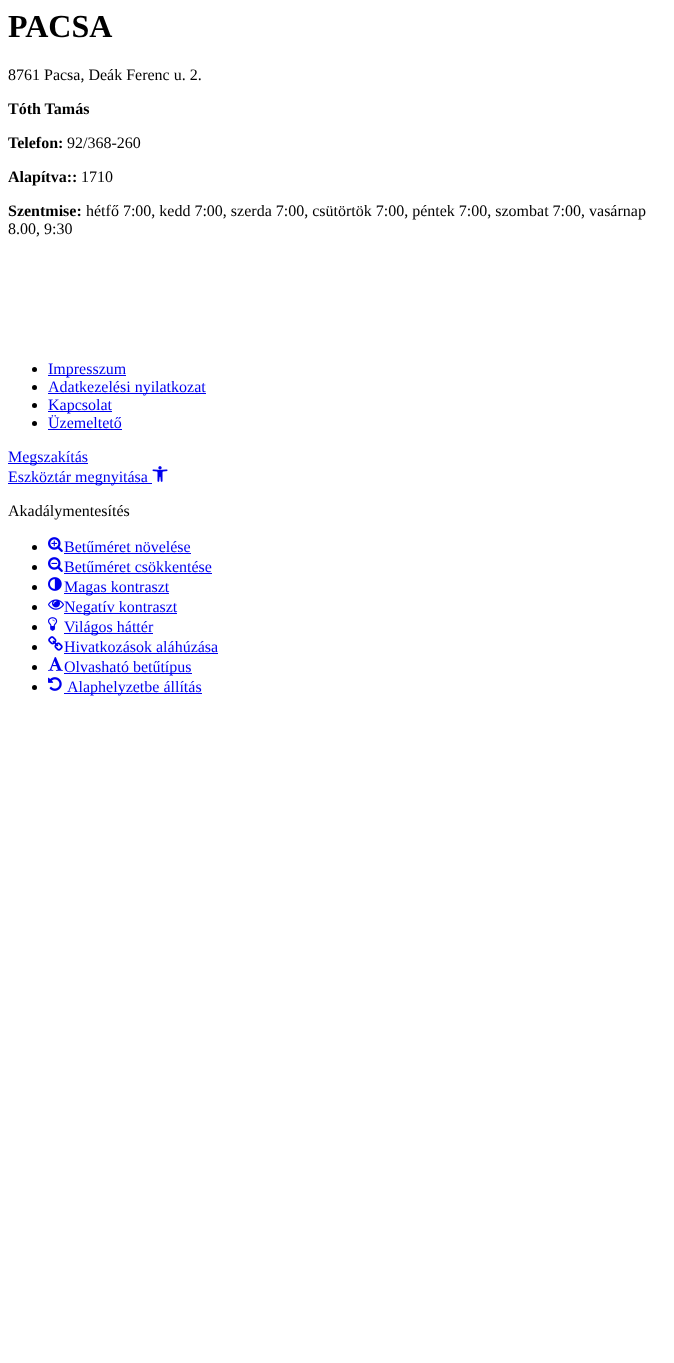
<!DOCTYPE html>
<meta charset="utf-8">
<style>body { margin: 0 } canvas { display: block }</style>
<canvas id="canvas" width="674" height="1363"></canvas>
<img id="img1" src="img_01.png" hidden>
<img id="img2" src="img_02.png" hidden>
<img id="img3" src="img_03.png" hidden>
<img id="img4" src="img_04.png" hidden>
<img id="img5" src="img_05.png" hidden>
<img id="img6" src="img_06.png" hidden>
<img id="img7" src="img_07.png" hidden>
<img id="img8" src="img_08.png" hidden>
<img id="img9" src="img_09.png" hidden>
<script>
window.onload = function () {
	const canvas = document.getElementById("canvas");
	const ctx = canvas.getContext("2d");
	ctx.miterLimit = 4;
	ctx.fontKerning = "normal";
	function txt(s, x, y) {
		ctx.fillText(s, x, y);
	}
	function fill(x, y, w, h) {
		ctx.fillRect(x, y, w, h);
	}
	function img(id, x, y, w, h) {
		ctx.drawImage(document.getElementById(id), x, y, w, h);
	}

	ctx.fillStyle = "#FFFFFF";
	fill(0, 0, 674, 1363);
	ctx.fillStyle = "#000000";
	ctx.beginPath();
	ctx.arc(34.5, 369.5, 2.5, 0, Math.PI * 2);
	ctx.fill();
	ctx.fillStyle = "#0000EE";
	fill(48, 375, 78, 1);
	ctx.fillStyle = "#000000";
	ctx.beginPath();
	ctx.arc(34.5, 387.5, 2.5, 0, Math.PI * 2);
	ctx.fill();
	ctx.fillStyle = "#0000EE";
	fill(48, 393, 158, 1);
	ctx.fillStyle = "#000000";
	ctx.beginPath();
	ctx.arc(34.5, 405.5, 2.5, 0, Math.PI * 2);
	ctx.fill();
	ctx.fillStyle = "#0000EE";
	fill(48, 411, 64, 1);
	ctx.fillStyle = "#000000";
	ctx.beginPath();
	ctx.arc(34.5, 423.5, 2.5, 0, Math.PI * 2);
	ctx.fill();
	ctx.fillStyle = "#0000EE";
	fill(48, 429, 74, 1);
	fill(8, 463, 80, 1);
	fill(8, 483, 144, 1);
	img("img1", 152, 466, 16, 16);
	ctx.fillStyle = "#000000";
	ctx.beginPath();
	ctx.arc(34.5, 547.5, 2.5, 0, Math.PI * 2);
	ctx.fill();
	img("img2", 48, 537, 15, 15);
	ctx.fillStyle = "#0000EE";
	fill(64, 553, 127, 1);
	ctx.fillStyle = "#000000";
	ctx.beginPath();
	ctx.arc(34.5, 567.5, 2.5, 0, Math.PI * 2);
	ctx.fill();
	img("img3", 48, 557, 15, 15);
	ctx.fillStyle = "#0000EE";
	fill(64, 573, 148, 1);
	ctx.fillStyle = "#000000";
	ctx.beginPath();
	ctx.arc(34.5, 587.5, 2.5, 0, Math.PI * 2);
	ctx.fill();
	img("img4", 48, 577, 14, 14);
	ctx.fillStyle = "#0000EE";
	fill(64, 593, 105, 1);
	ctx.fillStyle = "#000000";
	ctx.beginPath();
	ctx.arc(34.5, 607.5, 2.5, 0, Math.PI * 2);
	ctx.fill();
	img("img5", 48, 599, 16, 11);
	ctx.fillStyle = "#0000EE";
	fill(64, 613, 113, 1);
	ctx.fillStyle = "#000000";
	ctx.beginPath();
	ctx.arc(34.5, 627.5, 2.5, 0, Math.PI * 2);
	ctx.fill();
	img("img6", 48, 617, 10, 14);
	ctx.fillStyle = "#0000EE";
	fill(64, 633, 89, 1);
	ctx.fillStyle = "#000000";
	ctx.beginPath();
	ctx.arc(34.5, 647.5, 2.5, 0, Math.PI * 2);
	ctx.fill();
	img("img7", 48, 636, 15, 15);
	ctx.fillStyle = "#0000EE";
	fill(64, 653, 154, 1);
	ctx.fillStyle = "#000000";
	ctx.beginPath();
	ctx.arc(34.5, 667.5, 2.5, 0, Math.PI * 2);
	ctx.fill();
	img("img8", 48, 657, 15, 14);
	ctx.fillStyle = "#0000EE";
	fill(64, 673, 128, 1);
	ctx.fillStyle = "#000000";
	ctx.beginPath();
	ctx.arc(34.5, 687.5, 2.5, 0, Math.PI * 2);
	ctx.fill();
	img("img9", 48, 677, 14, 14);
	ctx.fillStyle = "#0000EE";
	fill(64, 693, 138, 1);
	ctx.font = "bold 32px Liberation Serif";
	ctx.fillStyle = "#000000";
	txt("PACSA", 8, 37);
	ctx.font = "16px Liberation Serif";
	txt("8761 Pacsa, Deák Ferenc u. 2.", 8, 80);
	ctx.font = "bold 16px Liberation Serif";
	txt("Tóth Tamás", 8, 114);
	txt("Telefon:", 8, 148);
	ctx.font = "16px Liberation Serif";
	txt("92/368-260", 67, 148);
	ctx.font = "bold 16px Liberation Serif";
	txt("Alapítva::", 8, 182);
	ctx.font = "16px Liberation Serif";
	txt("1710", 81, 182);
	ctx.font = "bold 16px Liberation Serif";
	txt("Szentmise:", 8, 216);
	ctx.font = "16px Liberation Serif";
	txt("hétfő 7:00, kedd 7:00, szerda 7:00, csütörtök 7:00, péntek 7:00, szombat 7:00, vasárnap", 86, 216);
	txt("8.00, 9:30", 8, 234);
	ctx.fillStyle = "#0000EE";
	txt("Impresszum", 48, 374);
	txt("Adatkezelési nyilatkozat", 48, 392);
	txt("Kapcsolat", 48, 410);
	txt("Üzemeltető", 48, 428);
	txt("Megszakítás", 8, 462);
	txt("Eszköztár megnyitása", 8, 482);
	ctx.fillStyle = "#000000";
	txt("Akadálymentesítés", 8, 516);
	ctx.fillStyle = "#0000EE";
	txt("Betűméret növelése", 64, 552);
	txt("Betűméret csökkentése", 64, 572);
	txt("Magas kontraszt", 64, 592);
	txt("Negatív kontraszt", 64, 612);
	txt("Világos háttér", 64, 632);
	txt("Hivatkozások aláhúzása", 64, 652);
	txt("Olvasható betűtípus", 64, 672);
	txt("Alaphelyzetbe állítás", 67, 692);
};
</script>
